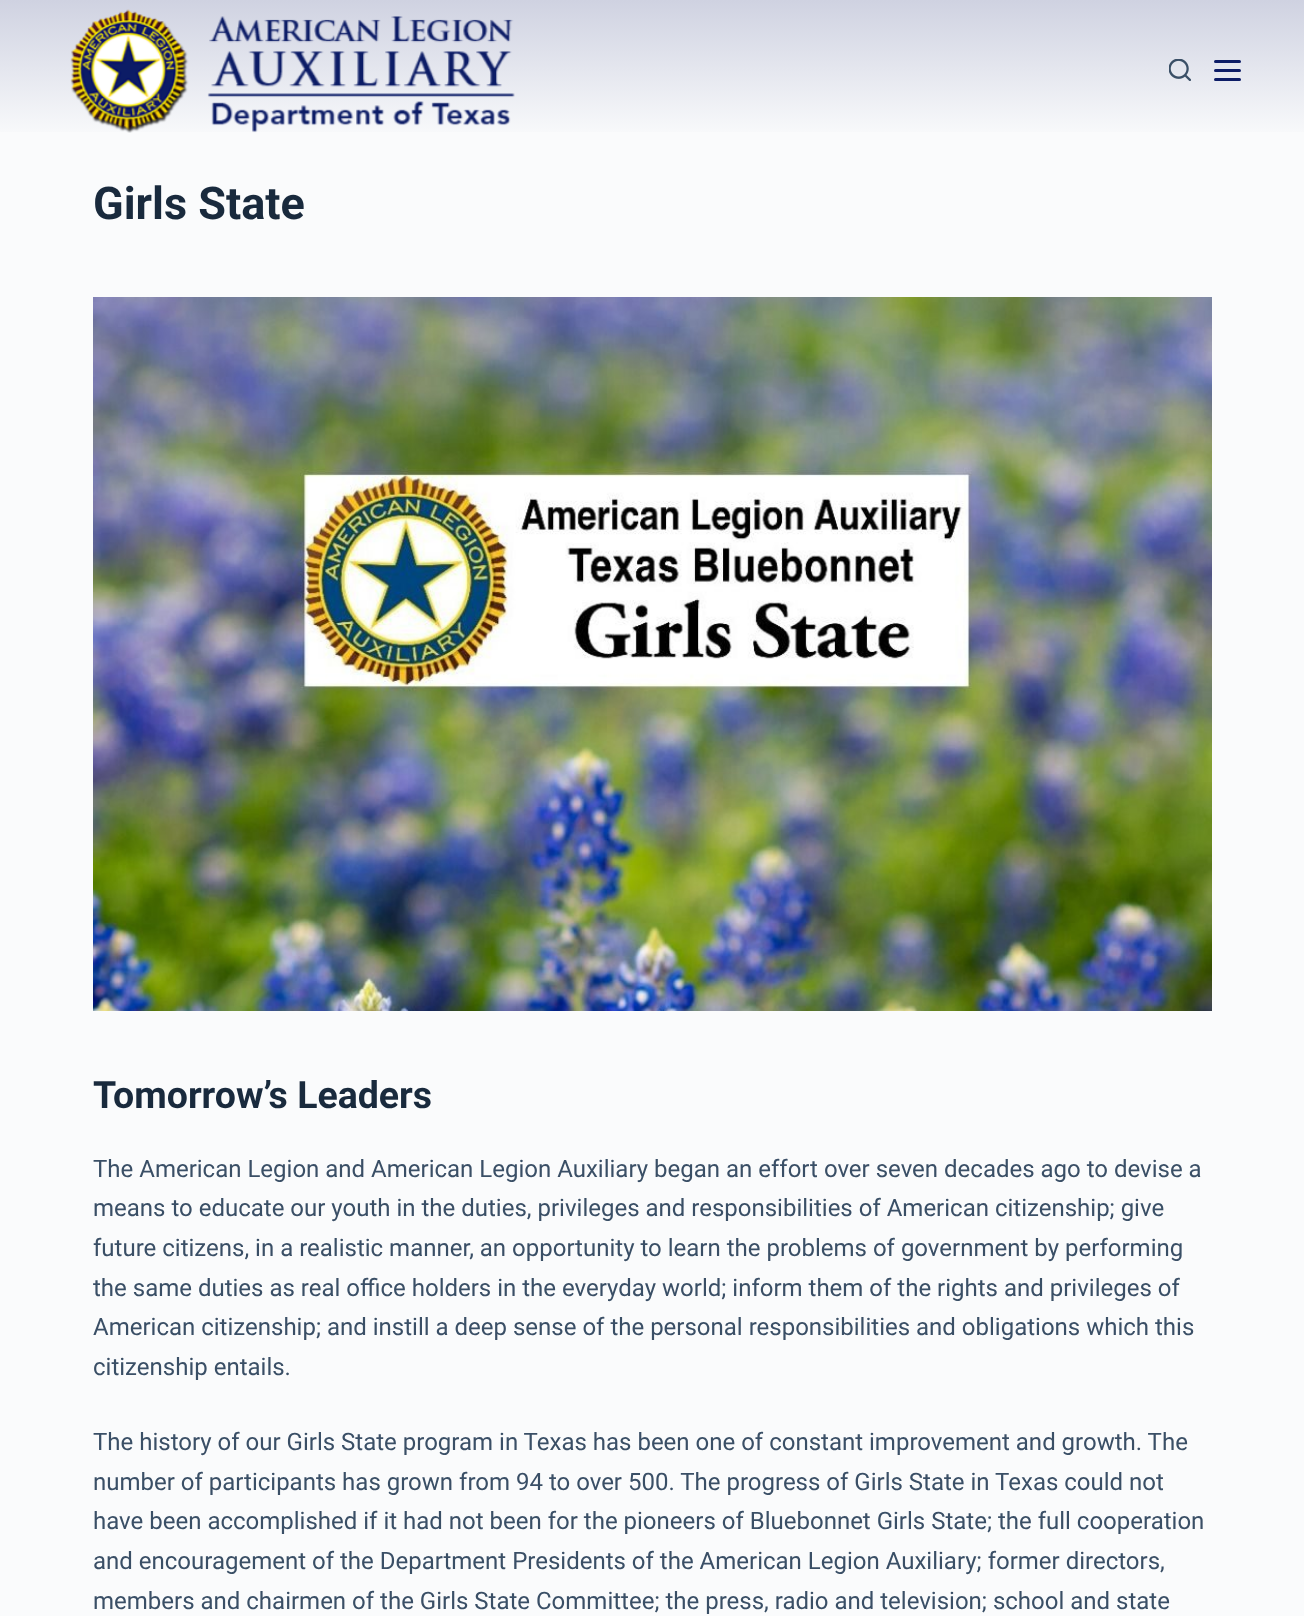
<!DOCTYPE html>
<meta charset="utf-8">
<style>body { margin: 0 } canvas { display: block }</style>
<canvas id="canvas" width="1304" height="1616"></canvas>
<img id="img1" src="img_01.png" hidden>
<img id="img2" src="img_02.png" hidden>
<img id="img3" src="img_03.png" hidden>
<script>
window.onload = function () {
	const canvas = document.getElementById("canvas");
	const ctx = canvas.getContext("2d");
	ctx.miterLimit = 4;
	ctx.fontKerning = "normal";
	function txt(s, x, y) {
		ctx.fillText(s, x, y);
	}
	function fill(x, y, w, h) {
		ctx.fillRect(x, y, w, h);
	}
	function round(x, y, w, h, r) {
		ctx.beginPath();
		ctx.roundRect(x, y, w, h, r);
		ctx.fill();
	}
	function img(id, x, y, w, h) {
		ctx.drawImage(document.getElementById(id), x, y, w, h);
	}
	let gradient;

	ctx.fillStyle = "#FAFBFC";
	fill(0, 0, 1304, 1616);
	gradient = ctx.createLinearGradient(653, 0, 653, 140);
	gradient.addColorStop(0, "#CFD2E1");
	gradient.addColorStop(1, "#FAFBFC");
	ctx.fillStyle = gradient;
	fill(0, 0, 1304, 132);
	img("img1", 70, 9, 445, 124);
	img("img2", 1169, 59, 22, 22);
	ctx.fillStyle = "#0C1C66";
	round(1214, 60, 27, 3, 1.5);
	round(1214, 69, 27, 3, 1.5);
	round(1214, 78, 27, 3, 1.5);
	img("img3", 93, 297, 1119, 714);
	ctx.font = "bold 45px Roboto";
	ctx.fillStyle = "#192A3D";
	txt("Girls State", 93, 219);
	ctx.font = "bold 37.5px Roboto";
	txt("Tomorrow’s Leaders", 93, 1108);
	ctx.font = "24px Roboto";
	ctx.fillStyle = "#3A4F66";
	txt("The American Legion and American Legion Auxiliary began an effort over seven decades ago to devise a", 93, 1177);
	txt("means to educate our youth in the duties, privileges and responsibilities of American citizenship; give", 93, 1216);
	txt("future citizens, in a realistic manner, an opportunity to learn the problems of government by performing", 93, 1256);
	txt("the same duties as real office holders in the everyday world; inform them of the rights and privileges of", 93, 1296);
	txt("American citizenship; and instill a deep sense of the personal responsibilities and obligations which this", 93, 1335);
	txt("citizenship entails.", 93, 1375);
	txt("The history of our Girls State program in Texas has been one of constant improvement and growth. The", 93, 1450);
	txt("number of participants has grown from 94 to over 500. The progress of Girls State in Texas could not", 93, 1490);
	txt("have been accomplished if it had not been for the pioneers of Bluebonnet Girls State; the full cooperation", 93, 1529);
	txt("and encouragement of the Department Presidents of the American Legion Auxiliary; former directors,", 93, 1569);
	txt("members and chairmen of the Girls State Committee; the press, radio and television; school and state", 93, 1609);
};
</script>
